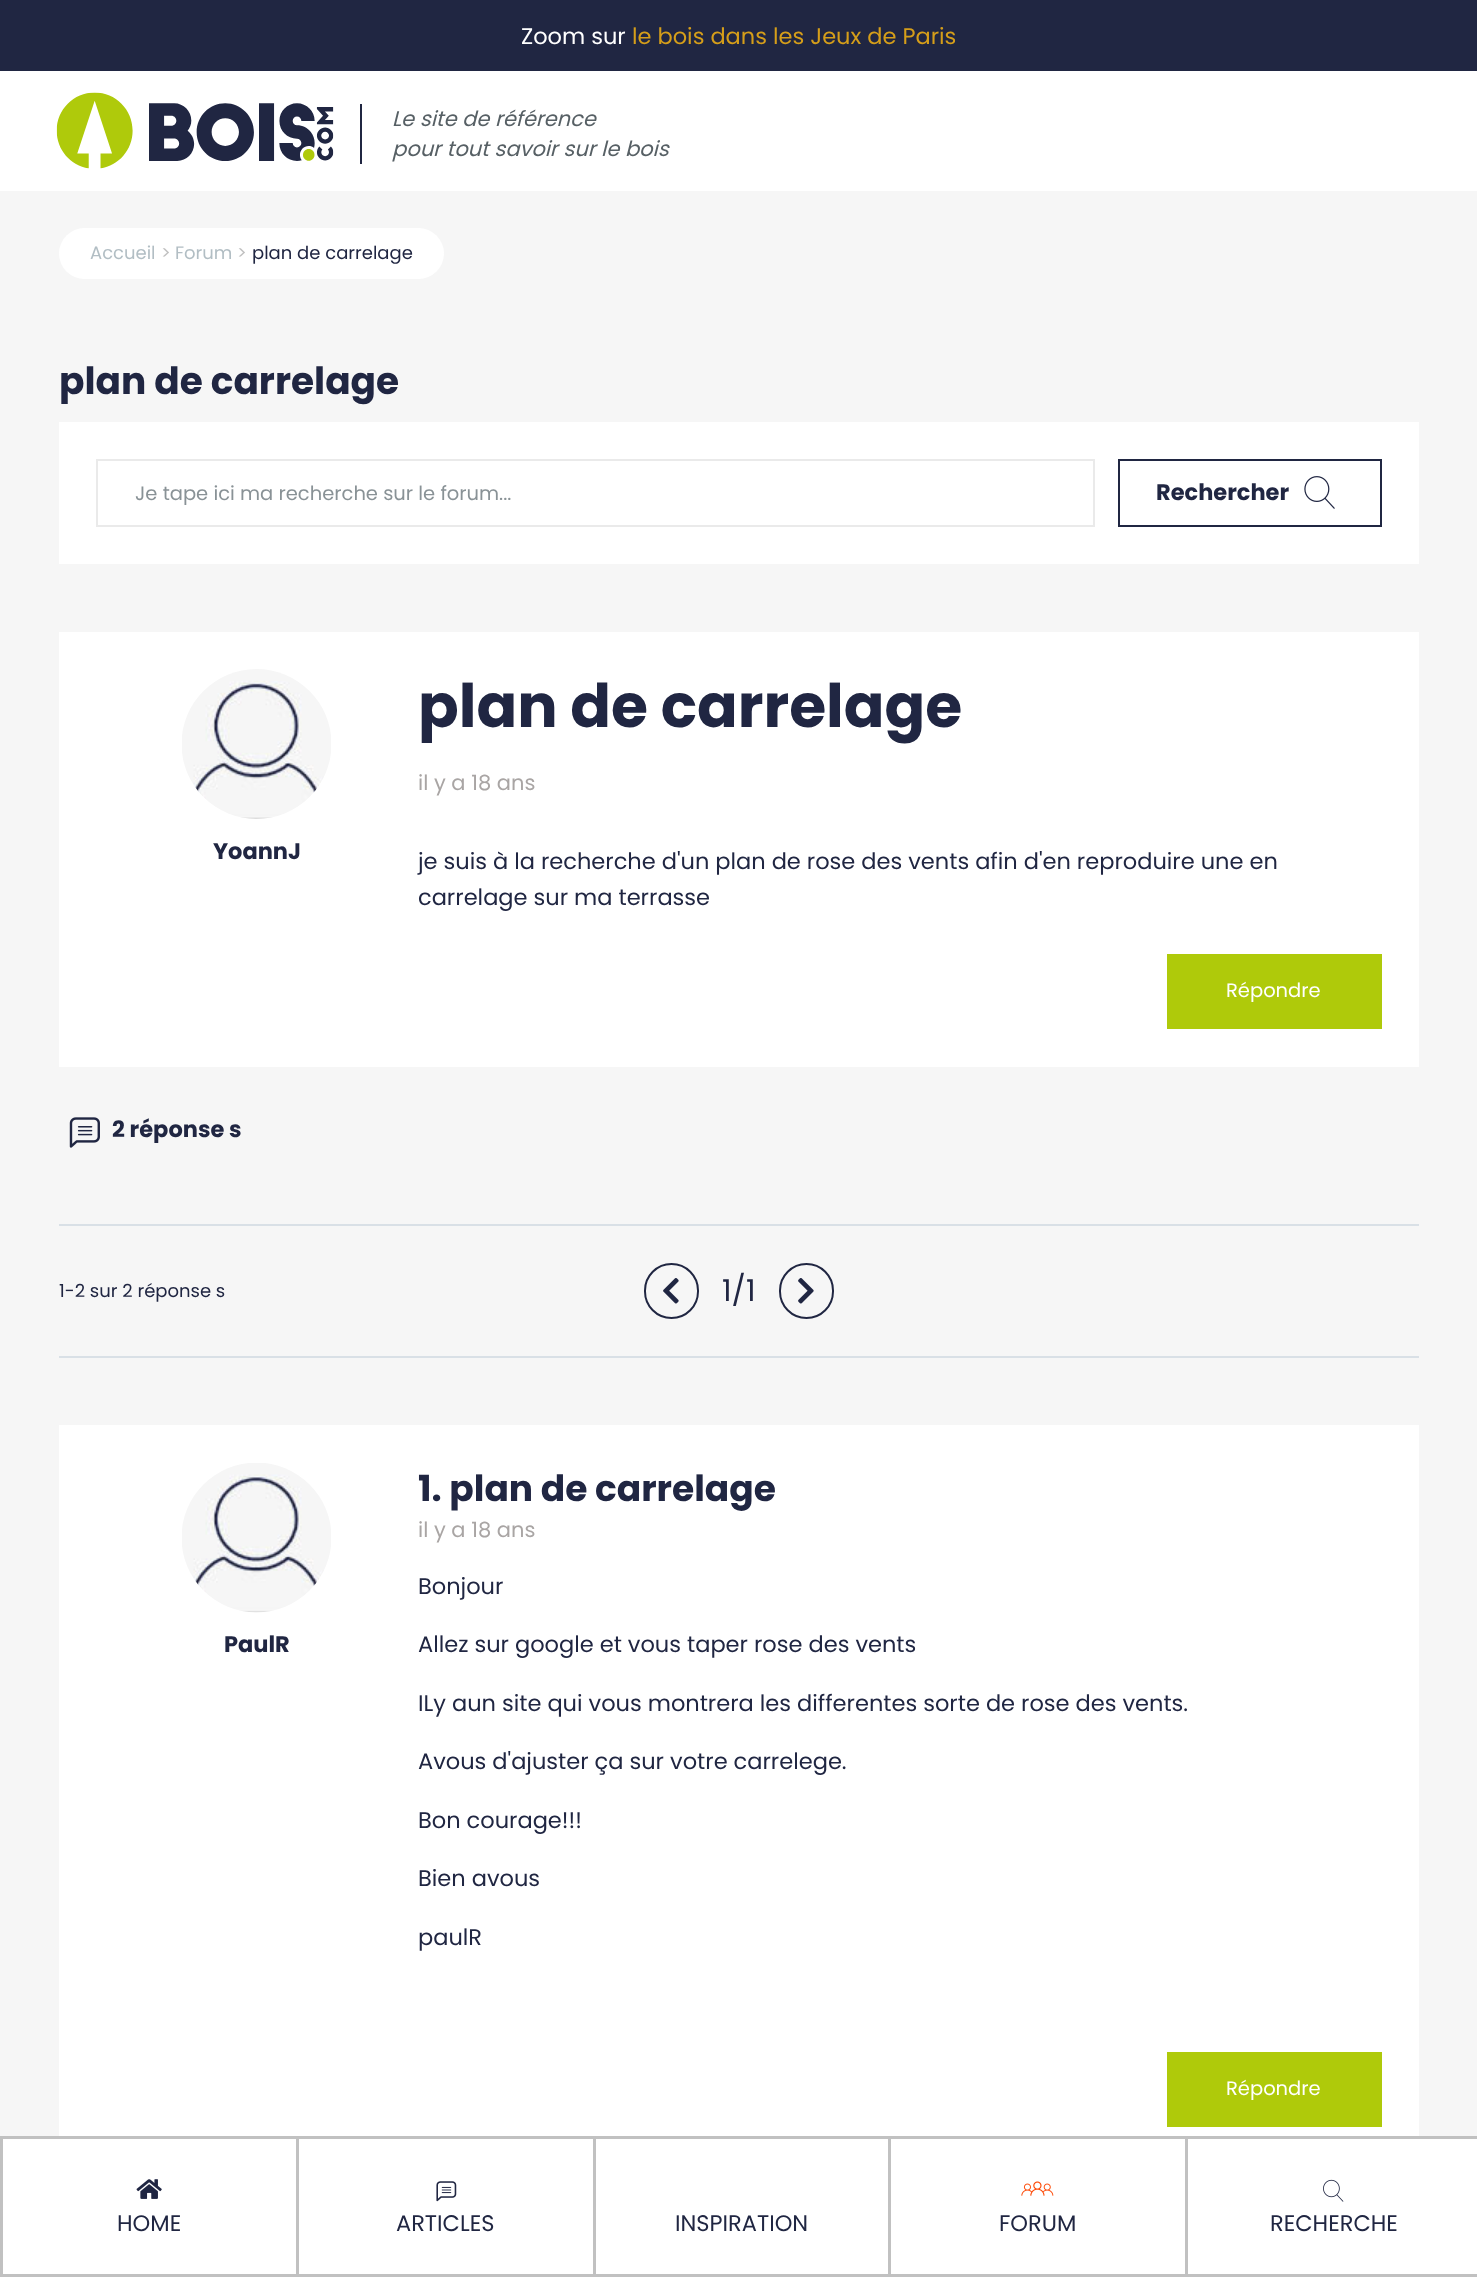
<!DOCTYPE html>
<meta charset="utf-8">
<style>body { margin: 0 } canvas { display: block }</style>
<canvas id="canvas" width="1477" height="2277"></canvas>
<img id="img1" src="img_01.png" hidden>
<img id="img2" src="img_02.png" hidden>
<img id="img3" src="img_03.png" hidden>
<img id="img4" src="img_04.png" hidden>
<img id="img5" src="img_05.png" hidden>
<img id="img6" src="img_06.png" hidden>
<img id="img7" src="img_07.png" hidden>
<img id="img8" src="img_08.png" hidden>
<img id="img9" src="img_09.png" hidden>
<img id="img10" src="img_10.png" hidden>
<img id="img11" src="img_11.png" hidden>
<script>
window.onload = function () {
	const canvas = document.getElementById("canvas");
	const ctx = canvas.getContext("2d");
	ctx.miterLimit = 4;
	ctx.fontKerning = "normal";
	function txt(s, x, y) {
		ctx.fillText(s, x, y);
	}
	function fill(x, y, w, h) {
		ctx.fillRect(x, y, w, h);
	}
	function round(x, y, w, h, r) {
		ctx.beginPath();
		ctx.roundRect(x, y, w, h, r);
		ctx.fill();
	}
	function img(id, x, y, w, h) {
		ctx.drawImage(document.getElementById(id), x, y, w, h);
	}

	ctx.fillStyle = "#F6F6F6";
	fill(0, 0, 1477, 2277);
	ctx.fillStyle = "#202642";
	fill(0, 0, 1477, 71);
	ctx.fillStyle = "#FFFFFF";
	fill(0, 71, 1477, 120);
	img("img1", 56, 92, 278, 77);
	ctx.fillStyle = "#202641";
	fill(360, 104, 2, 60);
	ctx.fillStyle = "#FFFFFF";
	round(59, 228, 385, 51, 25.5);
	fill(59, 422, 1360, 142);
	ctx.strokeStyle = "#EAEAEA";
	ctx.lineWidth = 2;
	ctx.strokeRect(97, 460, 997, 66);
	ctx.strokeStyle = "#202642";
	ctx.strokeRect(1119, 460, 262, 66);
	img("img2", 1304, 476, 31, 33);
	fill(59, 632, 1360, 435);
	img("img3", 182, 669, 149, 150);
	ctx.fillStyle = "#AFCA0A";
	fill(1167, 954, 215, 75);
	img("img4", 69, 1117, 31, 31);
	ctx.fillStyle = "#D9E0E6";
	fill(59, 1224, 1360, 2);
	fill(59, 1356, 1360, 2);
	ctx.beginPath();
	ctx.roundRect(645, 1264, 53, 54, 26.5);
	ctx.stroke();
	img("img5", 663, 1278, 16, 26);
	ctx.beginPath();
	ctx.roundRect(780, 1264, 53, 54, 26.5);
	ctx.stroke();
	img("img6", 798, 1278, 16, 26);
	ctx.fillStyle = "#FFFFFF";
	fill(59, 1425, 1360, 711);
	img("img7", 182, 1463, 149, 150);
	ctx.fillStyle = "#AFCA0A";
	fill(1167, 2052, 215, 75);
	ctx.fillStyle = "#FFFFFF";
	ctx.beginPath();
	ctx.rect(1.5, 2137.5, 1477, 138);
	ctx.fill();
	ctx.strokeStyle = "#C1C1C1";
	ctx.lineWidth = 3;
	ctx.stroke();
	ctx.fillStyle = "#C1C1C1";
	fill(296, 2139, 3, 135);
	img("img8", 136, 2179, 26, 20);
	fill(593, 2139, 3, 135);
	img("img9", 436, 2181, 21, 21);
	fill(888, 2139, 3, 135);
	fill(1185, 2139, 3, 135);
	img("img10", 1021, 2181, 33, 15);
	img("img11", 1323, 2179, 21, 23);
	ctx.font = "22.5px Poppins";
	ctx.fillStyle = "#FFFFFF";
	txt("Zoom sur", 521, 44);
	ctx.fillStyle = "#D59E1A";
	txt("le bois dans les Jeux de Paris", 632, 44);
	ctx.font = "italic 21px Poppins";
	ctx.fillStyle = "#576065";
	txt("Le site de référence", 392, 126);
	txt("pour tout savoir sur le bois", 392, 156);
	ctx.font = "18px Poppins";
	ctx.fillStyle = "#B2BEC4";
	txt("Accueil", 90, 259);
	ctx.fillStyle = "#C1C1C1";
	txt(">", 161, 259);
	ctx.fillStyle = "#B2BEC4";
	txt("Forum", 175, 259);
	ctx.fillStyle = "#C1C1C1";
	txt(">", 237, 259);
	ctx.fillStyle = "#202642";
	txt("plan de carrelage", 252, 259);
	ctx.font = "bold 37.5px Poppins";
	txt("plan de carrelage", 59, 394);
	ctx.font = "19.5px Poppins";
	ctx.fillStyle = "#899296";
	txt("Je tape ici ma recherche sur le forum...", 135, 500);
	ctx.font = "bold 22.5px Poppins";
	ctx.fillStyle = "#202642";
	txt("Rechercher", 1156, 500);
	txt("YoannJ", 213, 859);
	ctx.font = "bold 60px Poppins";
	txt("plan de carrelage", 418, 727);
	ctx.font = "21px Poppins";
	ctx.fillStyle = "#A9A5A4";
	txt("il y a 18 ans", 418, 790);
	ctx.font = "22.5px Poppins";
	ctx.fillStyle = "#202642";
	txt("je suis à la recherche d'un plan de rose des vents afin d'en reproduire une en", 418, 869);
	txt("carrelage sur ma terrasse", 418, 905);
	ctx.font = "19.5px Poppins";
	ctx.fillStyle = "#FFFFFF";
	txt("Répondre", 1226, 997);
	ctx.font = "bold 22.5px Poppins";
	ctx.fillStyle = "#202642";
	txt("2 réponse s", 112, 1137);
	ctx.font = "18px Poppins";
	txt("1-2 sur 2 réponse s", 59, 1297);
	ctx.font = "30px Poppins";
	txt("1/1", 722, 1301);
	ctx.font = "bold 22.5px Poppins";
	txt("PaulR", 224, 1652);
	ctx.font = "bold 36px Poppins";
	txt("1. plan de carrelage", 418, 1501);
	ctx.font = "21px Poppins";
	ctx.fillStyle = "#A9A5A4";
	txt("il y a 18 ans", 418, 1537);
	ctx.font = "22.5px Poppins";
	ctx.fillStyle = "#202642";
	txt("Bonjour", 418, 1594);
	txt("Allez sur google et vous taper rose des vents", 418, 1652);
	txt("ILy aun site qui vous montrera les differentes sorte de rose des vents.", 418, 1711);
	txt("Avous d'ajuster ça sur votre carrelege.", 418, 1769);
	txt("Bon courage!!!", 418, 1828);
	txt("Bien avous", 418, 1886);
	txt("paulR", 418, 1945);
	ctx.font = "19.5px Poppins";
	ctx.fillStyle = "#FFFFFF";
	txt("Répondre", 1226, 2095);
	ctx.font = "22.5px Poppins";
	ctx.fillStyle = "#202642";
	txt("HOME", 117, 2231);
	txt("ARTICLES", 396, 2231);
	txt("INSPIRATION", 675, 2231);
	txt("FORUM", 999, 2231);
	txt("RECHERCHE", 1270, 2231);
};
</script>
